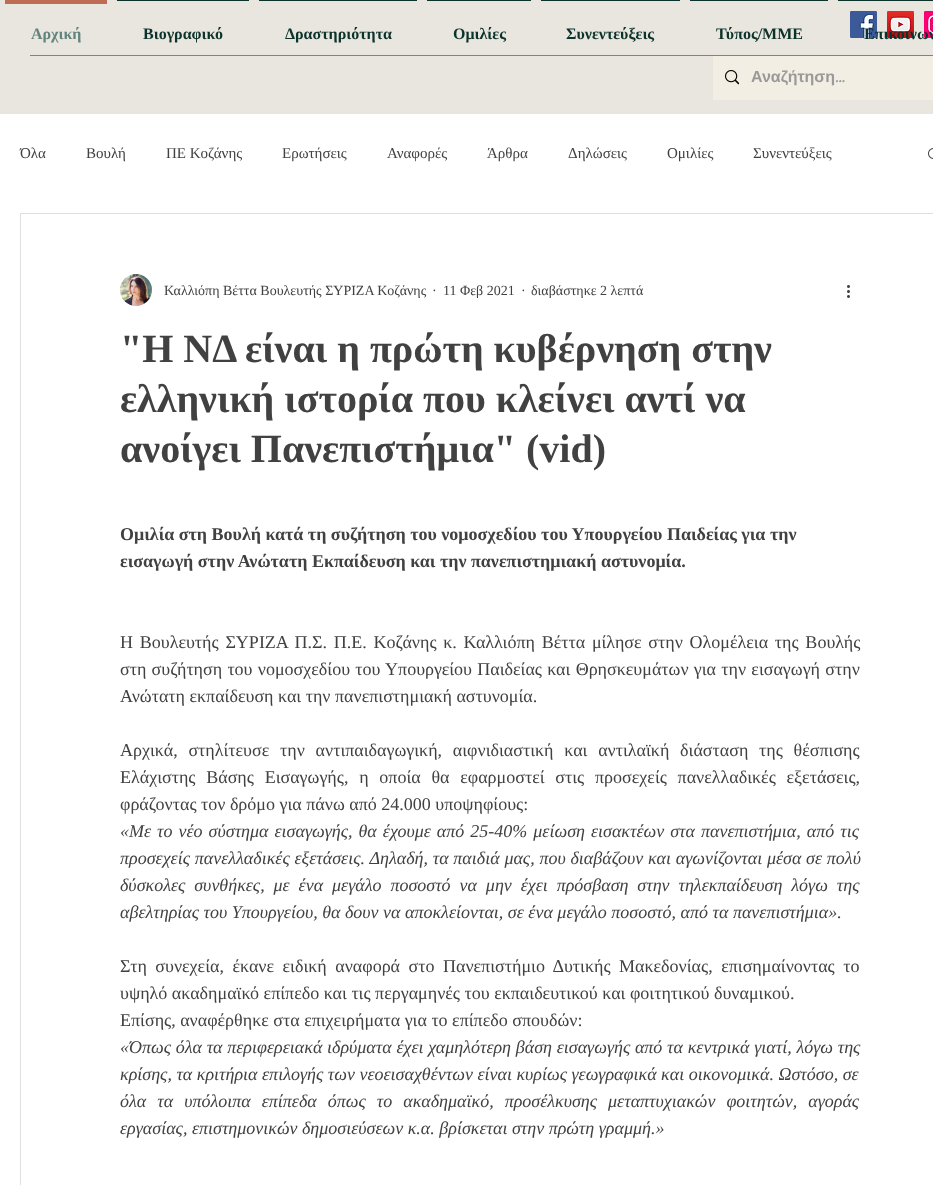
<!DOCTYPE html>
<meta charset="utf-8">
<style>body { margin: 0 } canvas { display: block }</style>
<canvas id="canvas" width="933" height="1185"></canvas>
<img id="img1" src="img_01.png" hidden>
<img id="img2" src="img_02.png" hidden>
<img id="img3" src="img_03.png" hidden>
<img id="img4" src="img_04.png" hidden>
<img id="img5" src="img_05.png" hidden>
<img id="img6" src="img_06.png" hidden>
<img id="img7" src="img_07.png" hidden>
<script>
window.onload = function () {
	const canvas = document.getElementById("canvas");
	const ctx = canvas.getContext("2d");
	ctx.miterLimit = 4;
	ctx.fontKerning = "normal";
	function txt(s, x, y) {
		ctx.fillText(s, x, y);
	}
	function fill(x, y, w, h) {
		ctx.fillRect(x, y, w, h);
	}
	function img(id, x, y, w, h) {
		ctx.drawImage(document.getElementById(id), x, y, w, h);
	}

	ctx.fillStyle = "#E9E6DF";
	fill(0, 0, 933, 1185);
	ctx.fillStyle = "#BE6D54";
	fill(5, 0, 102, 4);
	ctx.fillStyle = "#0B322B";
	fill(117, 0, 132, 1);
	fill(259, 0, 158, 1);
	fill(427, 0, 104, 1);
	fill(541, 0, 139, 1);
	fill(690, 0, 138, 1);
	fill(838, 0, 95, 1);
	ctx.fillStyle = "#BE6D54";
	fill(30, 55, 903, 1);
	img("img1", 850, 11, 27, 27);
	img("img2", 887, 11, 27, 27);
	img("img3", 924, 11, 9, 27);
	ctx.fillStyle = "#F2EEE4";
	fill(713, 56, 220, 44);
	img("img4", 725, 70, 14, 15);
	ctx.fillStyle = "#FFFFFF";
	fill(0, 114, 933, 1071);
	img("img5", 928, 148, 5, 11);
	ctx.strokeStyle = "#DFDFDF";
	ctx.strokeRect(20.5, 213.5, 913, 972);
	img("img6", 120, 274, 32, 32);
	img("img7", 847, 285, 3, 13);
	ctx.font = "bold 16px Liberation Serif";
	ctx.fillStyle = "#62847E";
	txt("Αρχική", 31, 39);
	ctx.fillStyle = "#0B322B";
	txt("Βιογραφικό", 143, 39);
	txt("Δραστηριότητα", 285, 39);
	txt("Ομιλίες", 453, 39);
	txt("Συνεντεύξεις", 566, 39);
	txt("Τύπος/ΜΜΕ", 716, 39);
	txt("Επικοινων", 864, 39);
	ctx.font = "bold 16px Liberation Sans";
	ctx.fillStyle = "#999999";
	txt("Αναζήτηση", 751, 82);
	ctx.font = "bold 16px 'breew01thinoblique'";
	txt("...", 835, 82);
	ctx.font = "15px Liberation Serif";
	ctx.fillStyle = "#414141";
	txt("Όλα", 20, 158);
	txt("Βουλή", 86, 158);
	txt("ΠΕ Κοζάνης", 166, 158);
	txt("Ερωτήσεις", 282, 158);
	txt("Αναφορές", 387, 158);
	txt("Άρθρα", 487, 158);
	txt("Δηλώσεις", 568, 158);
	txt("Ομιλίες", 667, 158);
	txt("Συνεντεύξεις", 753, 158);
	ctx.font = "14px Liberation Serif";
	txt("Καλλιόπη Βέττα Βουλευτής ΣΥΡΙΖΑ Κοζάνης", 164, 295);
	txt("·", 432, 295);
	txt("11 Φεβ 2021", 443, 295);
	txt("·", 521, 295);
	txt("διαβάστηκε 2 λεπτά", 531, 295);
	ctx.font = "bold 40px Liberation Serif";
	txt("\"Η ΝΔ είναι η πρώτη κυβέρνηση στην", 120, 362);
	txt("ελληνική ιστορία που κλείνει αντί να", 120, 412);
	txt("ανοίγει Πανεπιστήμια\" (vid)", 120, 462);
	ctx.font = "bold 18px Liberation Serif";
	txt("Ομιλία στη Bουλή κατά τη συζήτηση του νομοσχεδίου του Υπουργείου Παιδείας για την", 120, 540);
	txt("εισαγωγή στην Ανώτατη Εκπαίδευση και την πανεπιστημιακή αστυνομία.", 120, 567);
	ctx.wordSpacing = "2.25px";
	ctx.font = "18px Liberation Serif";
	txt("Η Βουλευτής ΣΥΡΙΖΑ Π.Σ. Π.Ε. Κοζάνης κ. Καλλιόπη Βέττα μίλησε στην Ολομέλεια της Βουλής", 120, 648);
	ctx.wordSpacing = "0.75px";
	txt("στη συζήτηση του νομοσχεδίου του Υπουργείου Παιδείας και Θρησκευμάτων για την εισαγωγή στην", 120, 675);
	ctx.wordSpacing = "0px";
	txt("Ανώτατη εκπαίδευση και την πανεπιστημιακή αστυνομία.", 120, 702);
	ctx.wordSpacing = "6.25px";
	txt("Αρχικά, στηλίτευσε την αντιπαιδαγωγική, αιφνιδιαστική και αντιλαϊκή διάσταση της θέσπισης", 120, 756);
	txt("Ελάχιστης Βάσης Εισαγωγής, η οποία θα εφαρμοστεί στις προσεχείς πανελλαδικές εξετάσεις,", 120, 783);
	ctx.wordSpacing = "0px";
	txt("φράζοντας τον δρόμο για πάνω από 24.000 υποψηφίους:", 120, 810);
	ctx.wordSpacing = "1.5px";
	ctx.font = "italic 18px Liberation Serif";
	txt("«Με το νέο σύστημα εισαγωγής, θα έχουμε από 25-40% μείωση εισακτέων στα πανεπιστήμια, από τις", 120, 837);
	ctx.wordSpacing = "0.25px";
	txt("προσεχείς πανελλαδικές εξετάσεις. Δηλαδή, τα παιδιά μας, που διαβάζουν και αγωνίζονται μέσα σε πολύ", 120, 864);
	ctx.wordSpacing = "4.4px";
	txt("δύσκολες συνθήκες, με ένα μεγάλο ποσοστό να μην έχει πρόσβαση στην τηλεκπαίδευση λόγω της", 120, 891);
	ctx.wordSpacing = "0px";
	txt("αβελτηρίας του Υπουργείου, θα δουν να αποκλείονται, σε ένα μεγάλο ποσοστό, από τα πανεπιστήμια».", 120, 918);
	ctx.wordSpacing = "4px";
	ctx.font = "18px Liberation Serif";
	txt("Στη συνεχεία, έκανε ειδική αναφορά στο Πανεπιστήμιο Δυτικής Μακεδονίας, επισημαίνοντας το", 120, 972);
	ctx.wordSpacing = "0px";
	txt("υψηλό ακαδημαϊκό επίπεδο και τις περγαμηνές του εκπαιδευτικού και φοιτητικού δυναμικού.", 120, 999);
	txt("Επίσης, αναφέρθηκε στα επιχειρήματα για το επίπεδο σπουδών:", 120, 1026);
	ctx.wordSpacing = "0.2px";
	ctx.font = "italic 18px Liberation Serif";
	txt("«Όπως όλα τα περιφερειακά ιδρύματα έχει χαμηλότερη βάση εισαγωγής από τα κεντρικά γιατί, λόγω της", 120, 1053);
	ctx.wordSpacing = "0px";
	txt("κρίσης, τα κριτήρια επιλογής των νεοεισαχθέντων είναι κυρίως γεωγραφικά και οικονομικά. Ωστόσο, σε", 120, 1080);
	ctx.wordSpacing = "6.5px";
	txt("όλα τα υπόλοιπα επίπεδα όπως το ακαδημαϊκό, προσέλκυσης μεταπτυχιακών φοιτητών, αγοράς", 120, 1107);
	ctx.wordSpacing = "0px";
	txt("εργασίας, επιστημονικών δημοσιεύσεων κ.α. βρίσκεται στην πρώτη γραμμή.»", 120, 1134);
};
</script>
